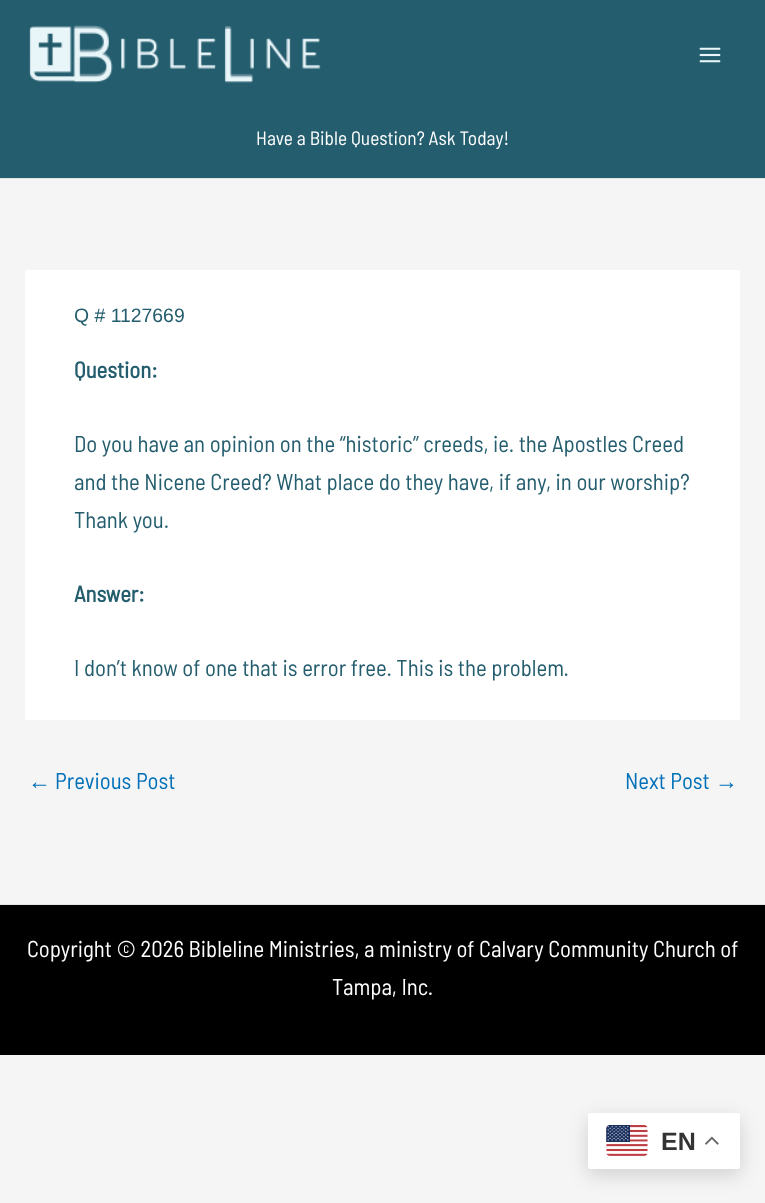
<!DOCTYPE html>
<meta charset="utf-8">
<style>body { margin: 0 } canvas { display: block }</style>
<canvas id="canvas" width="765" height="1203"></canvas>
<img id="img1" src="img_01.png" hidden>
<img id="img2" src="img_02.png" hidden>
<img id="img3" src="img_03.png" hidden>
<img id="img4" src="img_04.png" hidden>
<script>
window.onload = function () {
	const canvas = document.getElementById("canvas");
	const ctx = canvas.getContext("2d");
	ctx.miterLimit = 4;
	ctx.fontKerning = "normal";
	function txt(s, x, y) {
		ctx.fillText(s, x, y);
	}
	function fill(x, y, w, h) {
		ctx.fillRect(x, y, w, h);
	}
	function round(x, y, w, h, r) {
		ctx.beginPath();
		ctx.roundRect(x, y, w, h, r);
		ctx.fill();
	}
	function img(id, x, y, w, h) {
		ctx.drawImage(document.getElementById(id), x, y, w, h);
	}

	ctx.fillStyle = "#F5F5F5";
	fill(0, 0, 765, 1203);
	ctx.fillStyle = "#245D6E";
	fill(0, 0, 765, 178);
	img("img1", 29, 25, 292, 58);
	img("img2", 699, 47, 22, 16);
	ctx.fillStyle = "#E5E5E5";
	fill(0, 178, 765, 1);
	ctx.fillStyle = "#FFFFFF";
	fill(25, 270, 715, 450);
	ctx.fillStyle = "#000000";
	fill(0, 905, 765, 150);
	ctx.fillStyle = "#E5E5E5";
	fill(0, 904, 765, 1);
	ctx.fillStyle = "rgba(0, 0, 0, 0.15)";
	ctx.filter = "blur(9.5px)";
	ctx.beginPath();
	ctx.roundRect(588, 1119, 152, 56, 2.5);
	ctx.fill();
	ctx.filter = "none";
	ctx.fillStyle = "#FFFFFF";
	round(588, 1113, 152, 56, 2.5);
	img("img3", 606, 1125, 42, 31);
	img("img4", 705, 1136, 14, 9);
	ctx.font = "19.4px Barlow Semi Condensed";
	txt("Have a Bible Question? Ask Today!", 256, 145);
	ctx.font = "19.4px Liberation Sans";
	ctx.fillStyle = "#245D6E";
	txt("Q # 1127669", 74, 322);
	ctx.font = "bold 22.8px Barlow Semi Condensed";
	txt("Question:", 74, 378);
	ctx.font = "22.8px Barlow Semi Condensed";
	txt("Do you have an opinion on the “historic” creeds, ie. the Apostles Creed", 74, 452);
	txt("and the Nicene Creed? What place do they have, if any, in our worship?", 74, 490);
	txt("Thank you.", 74, 528);
	ctx.font = "bold 22.8px Barlow Semi Condensed";
	txt("Answer:", 74, 602);
	ctx.font = "22.8px Barlow Semi Condensed";
	txt("I don’t know of one that is error free. This is the problem.", 74, 676);
	ctx.font = "22.8px Liberation Sans";
	ctx.fillStyle = "#0170B9";
	txt("←", 28, 789);
	ctx.font = "22.8px Barlow Semi Condensed";
	txt("Previous Post", 55, 789);
	txt("Next Post", 625, 789);
	ctx.font = "22.8px Liberation Sans";
	txt("→", 715, 789);
	ctx.font = "22.8px Barlow Semi Condensed";
	ctx.fillStyle = "#FFFFFF";
	txt("Copyright © 2026 Bibleline Ministries, a ministry of Calvary Community Church of", 27, 957);
	txt("Tampa, Inc.", 332, 995);
	ctx.font = "bold 25px Liberation Sans";
	ctx.fillStyle = "#333333";
	txt("EN", 661, 1150);
};
</script>
